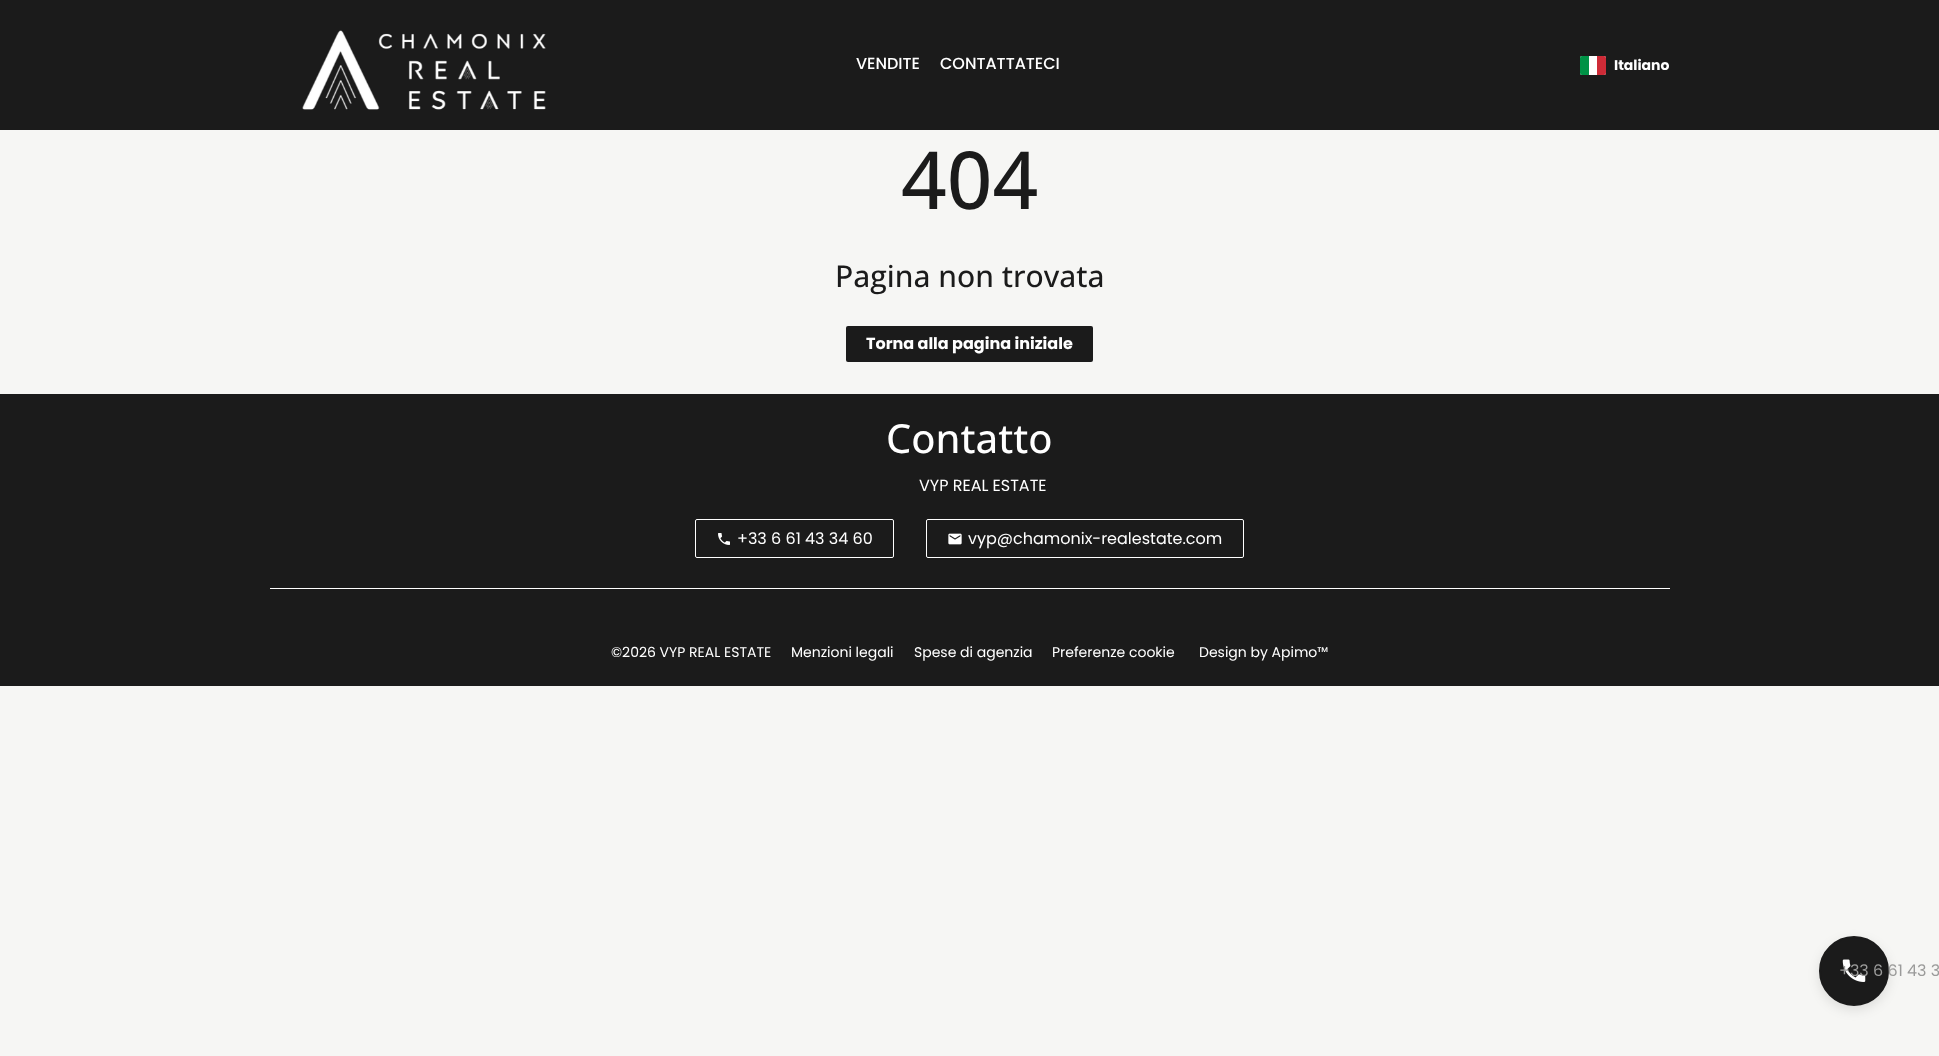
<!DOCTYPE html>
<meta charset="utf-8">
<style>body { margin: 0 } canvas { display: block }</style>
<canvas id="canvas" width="1939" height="1056"></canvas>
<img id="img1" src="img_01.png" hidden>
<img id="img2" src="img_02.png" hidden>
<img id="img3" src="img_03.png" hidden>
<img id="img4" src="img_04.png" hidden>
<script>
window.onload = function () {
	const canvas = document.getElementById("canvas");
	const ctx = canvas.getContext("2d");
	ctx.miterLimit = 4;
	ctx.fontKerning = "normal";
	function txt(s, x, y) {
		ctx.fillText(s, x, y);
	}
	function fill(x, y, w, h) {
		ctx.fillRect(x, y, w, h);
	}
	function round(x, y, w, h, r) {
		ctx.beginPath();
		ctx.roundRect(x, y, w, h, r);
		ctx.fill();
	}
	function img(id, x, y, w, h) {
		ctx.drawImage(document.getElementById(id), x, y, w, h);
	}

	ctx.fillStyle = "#F6F6F4";
	fill(0, 0, 1939, 1056);
	ctx.fillStyle = "#1B1B1B";
	fill(0, 0, 1939, 130);
	ctx.fillStyle = "#FFFFFF";
	round(1580, 56, 26, 19, 2);
	ctx.fillStyle = "#009246";
	ctx.beginPath();
	ctx.roundRect(1580, 56, 9, 19, [2, 0, 0, 2]);
	ctx.fill();
	ctx.fillStyle = "#CE2B37";
	ctx.beginPath();
	ctx.roundRect(1597, 56, 9, 19, [0, 2, 2, 0]);
	ctx.fill();
	img("img1", 302, 30, 244, 80);
	ctx.fillStyle = "rgba(0, 0, 0, 0.1)";
	ctx.filter = "blur(6px)";
	ctx.beginPath();
	ctx.roundRect(1819, 940, 70, 70, 35);
	ctx.fill();
	ctx.filter = "none";
	ctx.fillStyle = "#1B1B1B";
	ctx.beginPath();
	ctx.arc(1854, 971, 34, 0, Math.PI * 2);
	ctx.fill();
	ctx.strokeStyle = "#1B1B1B";
	ctx.lineWidth = 2;
	ctx.stroke();
	img("img2", 1842, 959, 24, 23);
	round(846, 326, 247, 36, 2);
	fill(0, 394, 1939, 292);
	ctx.beginPath();
	ctx.roundRect(695.5, 519.5, 198, 38, 1.5);
	ctx.strokeStyle = "#FFFFFF";
	ctx.lineWidth = 1;
	ctx.stroke();
	ctx.beginPath();
	ctx.roundRect(696.5, 520.5, 196, 36, 1.5);
	ctx.strokeStyle = "#1B1B1B";
	ctx.stroke();
	img("img3", 718, 533, 12, 12);
	ctx.beginPath();
	ctx.roundRect(926.5, 519.5, 317, 38, 1.5);
	ctx.strokeStyle = "#FFFFFF";
	ctx.stroke();
	ctx.beginPath();
	ctx.roundRect(927.5, 520.5, 315, 36, 1.5);
	ctx.strokeStyle = "#1B1B1B";
	ctx.stroke();
	img("img4", 948, 533, 14, 12);
	ctx.fillStyle = "#FFFFFF";
	fill(270, 588, 1400, 1);
	ctx.font = "500 16px Poppins";
	txt("VENDITE", 856, 69);
	txt("CONTATTATECI", 940, 69);
	ctx.font = "bold 14px Poppins";
	txt("Italiano", 1614, 70);
	ctx.font = "16px Poppins";
	ctx.fillStyle = "#9B9B9A";
	txt("+33 6 61 43 3", 1839, 976);
	ctx.font = "500 80px Open Sans";
	ctx.fillStyle = "#1B1B1B";
	txt("404", 901, 209);
	ctx.font = "500 30px Open Sans";
	txt("Pagina non trovata", 835, 287);
	ctx.font = "bold 16px Poppins";
	ctx.fillStyle = "#FFFFFF";
	txt("Torna alla pagina iniziale", 866, 349);
	ctx.font = "500 40px Open Sans";
	txt("Contatto", 886, 453);
	ctx.font = "16px Poppins";
	txt("VYP REAL ESTATE", 919, 491);
	txt("+33 6 61 43 34 60", 737, 544);
	txt("vyp@chamonix-realestate.com", 968, 544);
	ctx.font = "14px Poppins";
	txt("©2026 VYP REAL ESTATE", 611, 657);
	txt("Menzioni legali", 791, 657);
	txt("Spese di agenzia", 914, 657);
	txt("Preferenze cookie", 1052, 657);
	txt("Design by Apimo™", 1199, 657);
};
</script>
